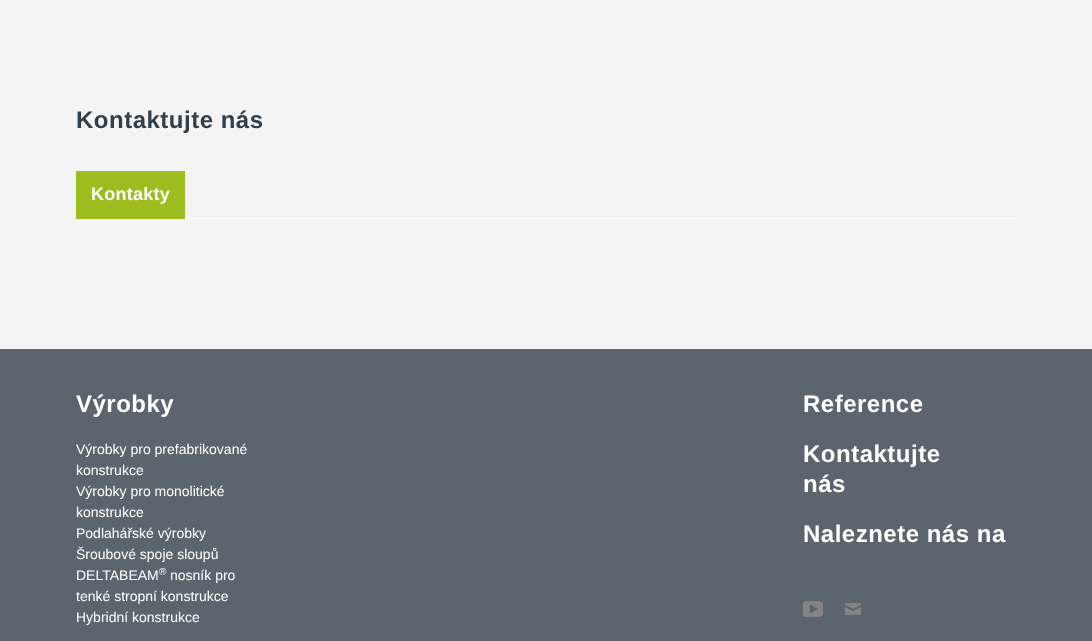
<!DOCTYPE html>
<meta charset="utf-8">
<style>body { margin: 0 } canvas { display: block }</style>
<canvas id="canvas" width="1092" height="641"></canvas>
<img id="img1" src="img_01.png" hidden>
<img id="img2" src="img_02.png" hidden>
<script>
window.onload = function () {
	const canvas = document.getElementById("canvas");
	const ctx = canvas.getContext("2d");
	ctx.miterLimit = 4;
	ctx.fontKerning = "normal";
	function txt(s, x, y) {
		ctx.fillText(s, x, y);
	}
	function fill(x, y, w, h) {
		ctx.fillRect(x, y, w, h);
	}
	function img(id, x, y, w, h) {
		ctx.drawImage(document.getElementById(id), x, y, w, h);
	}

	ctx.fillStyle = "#F4F4F4";
	fill(0, 0, 1092, 641);
	ctx.fillStyle = "#FFFFFF";
	fill(185, 218, 831, 1);
	ctx.fillStyle = "#9CBD1D";
	fill(76, 171, 109, 48);
	ctx.fillStyle = "#5C656D";
	fill(0, 349, 1092, 292);
	img("img1", 803, 601, 20, 16);
	img("img2", 845, 603, 16, 12);
	ctx.letterSpacing = "0.5px";
	ctx.font = "bold 24px Liberation Sans";
	ctx.fillStyle = "#333F48";
	txt("Kontaktujte nás", 76, 128);
	ctx.letterSpacing = "0.25px";
	ctx.font = "bold 18px Liberation Sans";
	ctx.fillStyle = "#FFFFFF";
	txt("Kontakty", 91, 200);
	ctx.letterSpacing = "0.5px";
	ctx.font = "bold 24px Liberation Sans";
	txt("Výrobky", 76, 412);
	ctx.letterSpacing = "0px";
	ctx.font = "14px Liberation Sans";
	txt("Výrobky pro prefabrikované", 76, 454);
	txt("konstrukce", 76, 475);
	txt("Výrobky pro monolitické", 76, 496);
	txt("konstrukce", 76, 517);
	txt("Podlahářské výrobky", 76, 538);
	txt("Šroubové spoje sloupů", 76, 559);
	txt("DELTABEAM", 76, 580);
	ctx.font = "10px Liberation Sans";
	txt("®", 159, 575);
	ctx.font = "14px Liberation Sans";
	txt("nosník pro", 170, 580);
	txt("tenké stropní konstrukce", 76, 601);
	txt("Hybridní konstrukce", 76, 622);
	ctx.letterSpacing = "0.5px";
	ctx.font = "bold 24px Liberation Sans";
	txt("Reference", 803, 412);
	txt("Kontaktujte", 803, 462);
	txt("nás", 803, 492);
	txt("Naleznete nás na", 803, 542);
};
</script>
